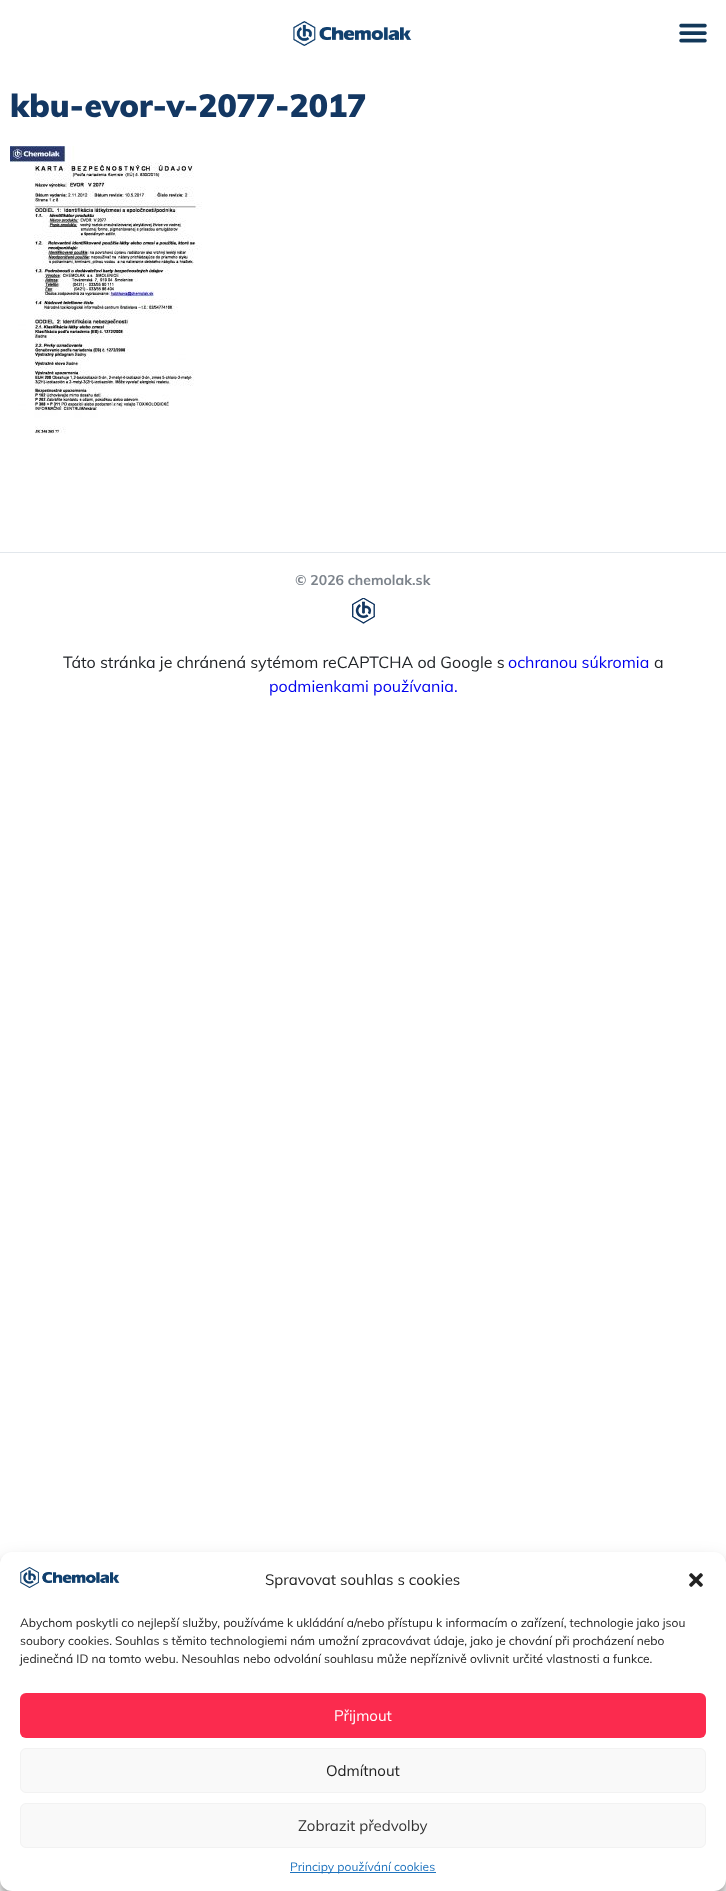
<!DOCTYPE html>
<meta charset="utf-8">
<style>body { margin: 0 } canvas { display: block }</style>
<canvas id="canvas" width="726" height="1891"></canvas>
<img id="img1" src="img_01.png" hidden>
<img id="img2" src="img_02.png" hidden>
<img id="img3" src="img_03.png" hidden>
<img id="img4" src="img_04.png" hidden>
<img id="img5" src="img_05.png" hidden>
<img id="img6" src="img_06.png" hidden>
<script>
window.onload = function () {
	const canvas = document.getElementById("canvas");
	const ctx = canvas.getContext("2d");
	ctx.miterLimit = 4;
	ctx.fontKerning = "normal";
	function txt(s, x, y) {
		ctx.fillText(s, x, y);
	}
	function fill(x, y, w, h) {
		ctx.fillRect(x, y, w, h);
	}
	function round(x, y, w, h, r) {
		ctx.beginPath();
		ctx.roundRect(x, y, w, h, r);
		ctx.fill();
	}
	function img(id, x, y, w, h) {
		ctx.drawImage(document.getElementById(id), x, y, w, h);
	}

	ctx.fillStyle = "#FFFFFF";
	fill(0, 0, 726, 1891);
	img("img1", 293, 21, 119, 25);
	img("img2", 679, 23, 28, 20);
	img("img3", 10, 146, 192, 288);
	ctx.fillStyle = "#E2E7EC";
	fill(0, 552, 726, 1);
	img("img4", 352, 598, 23, 26);
	ctx.fillStyle = "rgba(0, 0, 0, 0.23)";
	ctx.filter = "blur(3px)";
	ctx.beginPath();
	ctx.roundRect(0, 1558, 726, 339, 12);
	ctx.fill();
	ctx.filter = "none";
	ctx.fillStyle = "rgba(0, 0, 0, 0.19)";
	ctx.filter = "blur(10px)";
	ctx.beginPath();
	ctx.roundRect(0, 1562, 726, 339, 12);
	ctx.fill();
	ctx.filter = "none";
	ctx.fillStyle = "#FFFFFF";
	round(0, 1552, 726, 339, 12);
	img("img5", 20, 1567, 100, 21);
	img("img6", 689, 1573, 14, 14);
	ctx.fillStyle = "#FB2B4E";
	round(20, 1693, 686, 45, 6);
	ctx.fillStyle = "#F9F9F9";
	ctx.beginPath();
	ctx.roundRect(20.5, 1748.5, 685, 44, 5.5);
	ctx.fill();
	ctx.strokeStyle = "#F2F2F2";
	ctx.stroke();
	ctx.beginPath();
	ctx.roundRect(20.5, 1803.5, 685, 44, 5.5);
	ctx.fill();
	ctx.stroke();
	ctx.fillStyle = "#1E73BE";
	fill(290, 1872, 146, 1);
	ctx.font = "900 32px Muli";
	ctx.fillStyle = "#133762";
	txt("kbu-evor-v-2077-2017", 10, 117);
	ctx.font = "bold 14px Muli";
	ctx.fillStyle = "#7C838B";
	txt("© 2026 chemolak.sk", 295, 585);
	ctx.font = "16px Muli";
	ctx.fillStyle = "#212428";
	txt("Táto stránka je chránená sytémom reCAPTCHA od Google s", 63, 668);
	ctx.fillStyle = "#0000EE";
	txt("ochranou súkromia", 508, 668);
	ctx.fillStyle = "#212428";
	txt("a", 654, 668);
	ctx.fillStyle = "#0000EE";
	txt("podmienkami používania.", 269, 692);
	ctx.font = "15px Muli";
	ctx.fillStyle = "#222222";
	txt("Spravovat souhlas s cookies", 265, 1585);
	ctx.font = "12px Muli";
	txt("Abychom poskytli co nejlepší služby, používáme k ukládání a/nebo přístupu k informacím o zařízení, technologie jako jsou", 20, 1627);
	txt("soubory cookies. Souhlas s těmito technologiemi nám umožní zpracovávat údaje, jako je chování při procházení nebo", 20, 1645);
	txt("jedinečná ID na tomto webu. Nesouhlas nebo odvolání souhlasu může nepříznivě ovlivnit určité vlastnosti a funkce.", 20, 1663);
	ctx.font = "15px Muli";
	ctx.fillStyle = "#FFFFFF";
	txt("Přijmout", 334, 1721);
	ctx.fillStyle = "#222222";
	txt("Odmítnout", 326, 1776);
	ctx.fillStyle = "#333333";
	txt("Zobrazit předvolby", 298, 1831);
	ctx.font = "12px Muli";
	ctx.fillStyle = "#1E73BE";
	txt("Principy používání cookies", 290, 1871);
};
</script>
